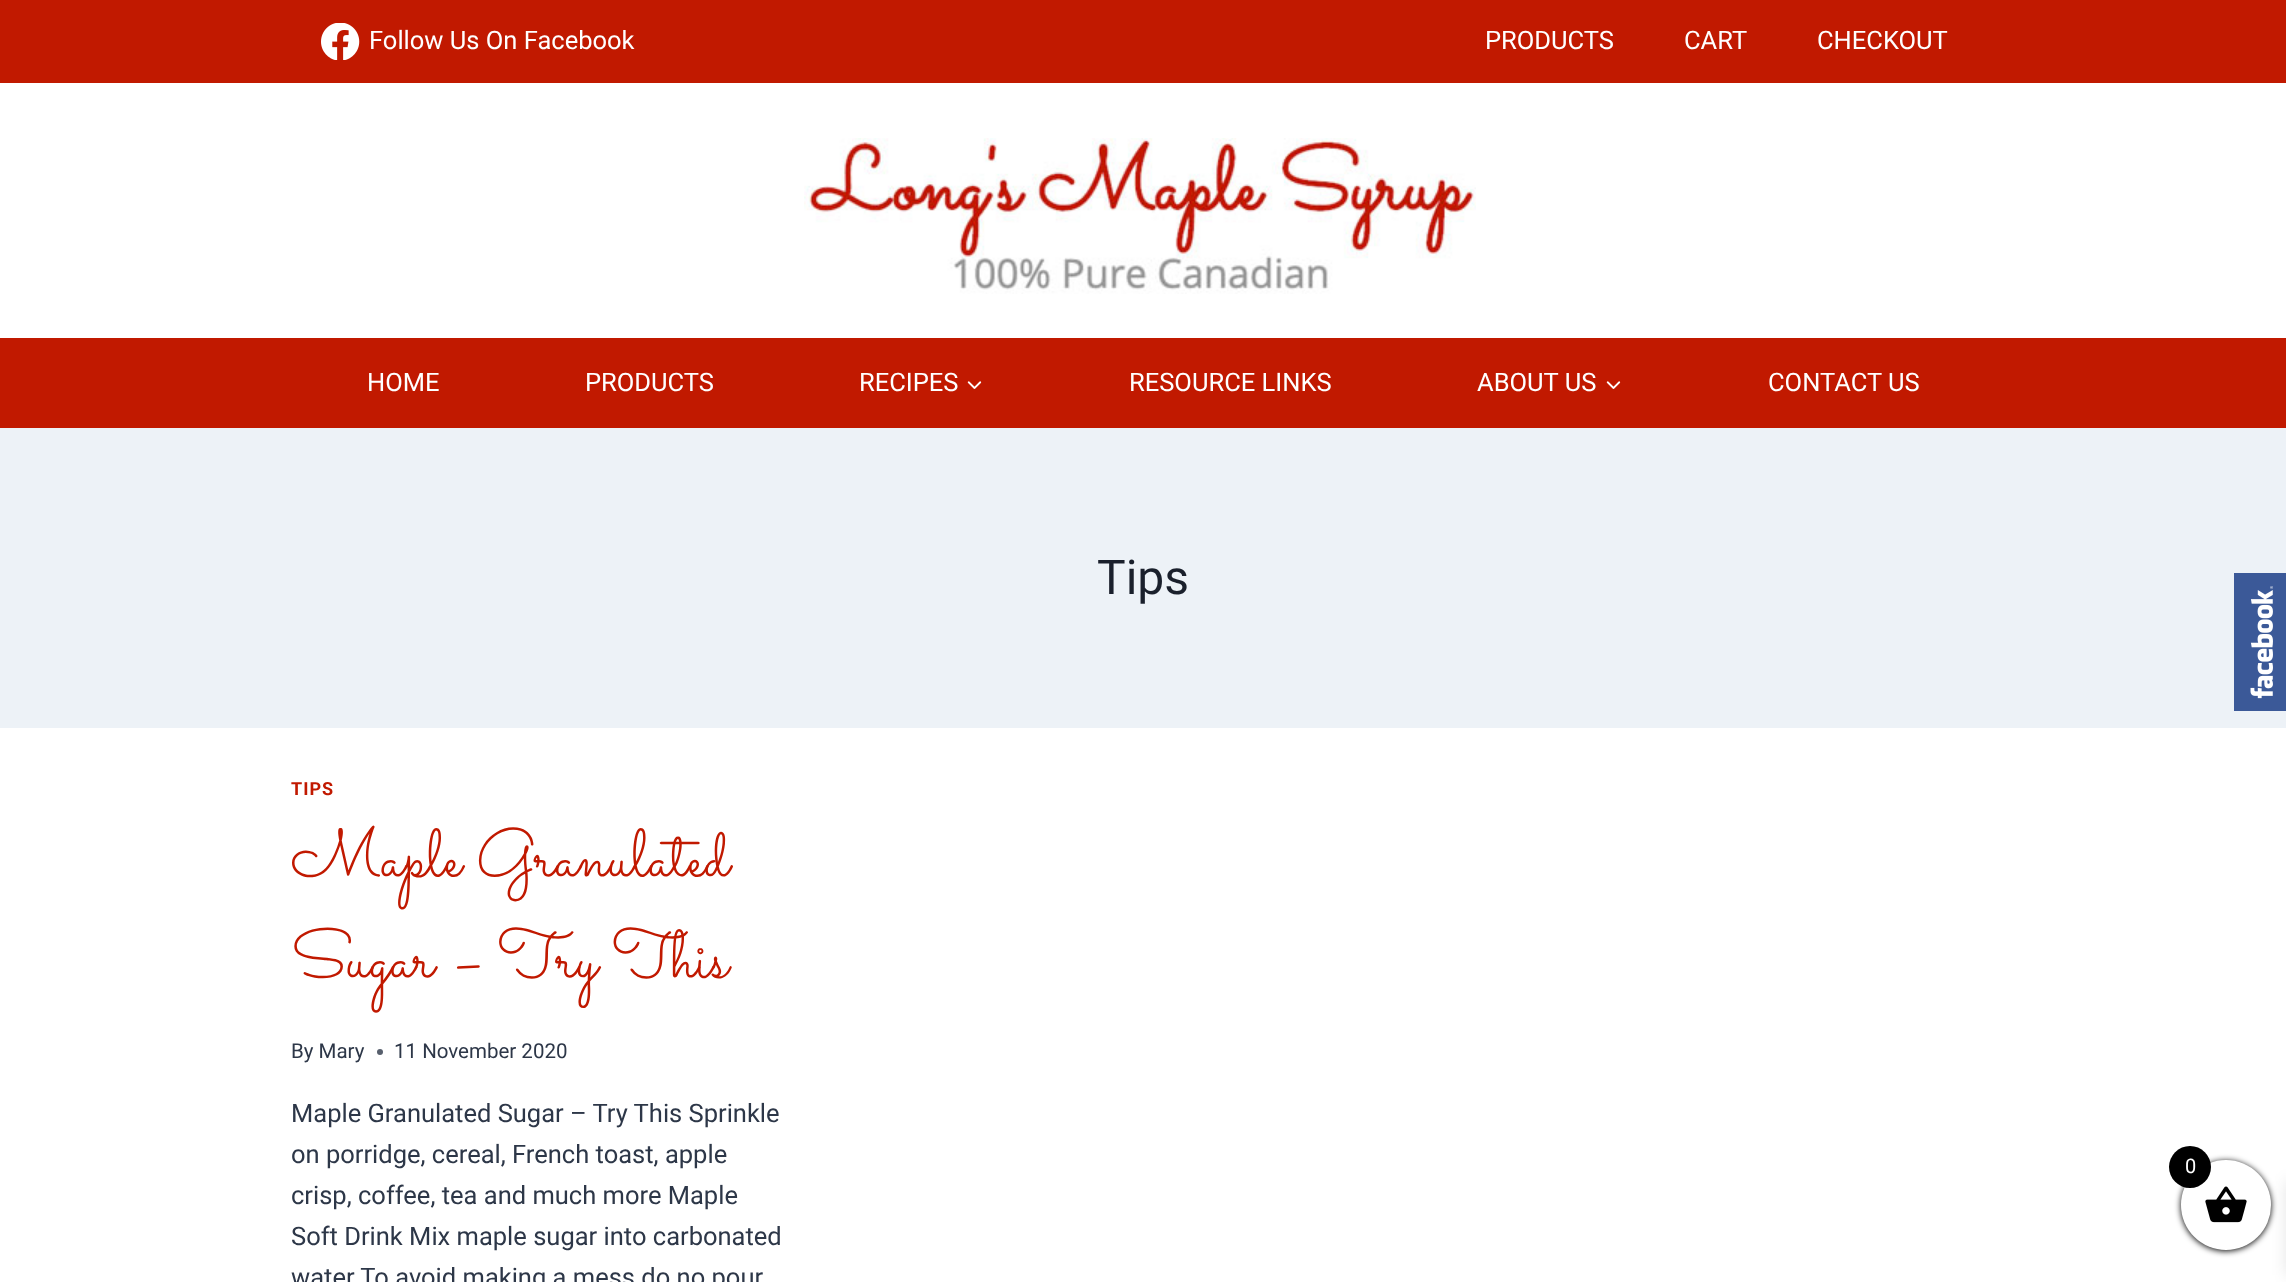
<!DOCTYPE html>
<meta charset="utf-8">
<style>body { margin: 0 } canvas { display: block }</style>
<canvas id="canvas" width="2286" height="1282"></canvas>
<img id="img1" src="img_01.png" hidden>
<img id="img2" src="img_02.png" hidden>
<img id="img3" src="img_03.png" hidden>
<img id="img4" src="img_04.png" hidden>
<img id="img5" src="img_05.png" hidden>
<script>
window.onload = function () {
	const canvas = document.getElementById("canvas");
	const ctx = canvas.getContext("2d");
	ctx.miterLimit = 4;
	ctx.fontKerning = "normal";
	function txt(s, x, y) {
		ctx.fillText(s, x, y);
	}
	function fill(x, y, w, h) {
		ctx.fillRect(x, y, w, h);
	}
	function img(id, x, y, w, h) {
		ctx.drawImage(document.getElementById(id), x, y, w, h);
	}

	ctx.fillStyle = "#FFFFFF";
	fill(0, 0, 2286, 1282);
	ctx.fillStyle = "#C11900";
	fill(0, 0, 2286, 83);
	img("img1", 321, 23, 39, 37);
	img("img2", 804, 138, 672, 156);
	fill(0, 338, 2286, 90);
	img("img3", 967, 381, 15, 8);
	img("img3", 1606, 381, 15, 8);
	ctx.fillStyle = "#EDF2F7";
	fill(0, 428, 2286, 300);
	ctx.fillStyle = "#575F6D";
	ctx.beginPath();
	ctx.arc(380, 1052, 3, 0, Math.PI * 2);
	ctx.fill();
	img("img4", 2234, 573, 52, 138);
	ctx.fillStyle = "#000000";
	ctx.filter = "blur(3px)";
	ctx.beginPath();
	ctx.roundRect(2181, 1161, 90, 90, 45);
	ctx.fill();
	ctx.filter = "none";
	ctx.fillStyle = "rgba(0, 0, 0, 0.1)";
	ctx.filter = "blur(7.5px)";
	ctx.beginPath();
	ctx.rect(2286, 1181, 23, 94);
	ctx.fill();
	ctx.filter = "none";
	ctx.fillStyle = "#FFFFFF";
	ctx.beginPath();
	ctx.arc(2226, 1205, 45, 0, Math.PI * 2);
	ctx.fill();
	img("img5", 2205, 1186, 42, 37);
	ctx.fillStyle = "#000000";
	ctx.beginPath();
	ctx.arc(2190, 1167, 21, 0, Math.PI * 2);
	ctx.fill();
	ctx.font = "25.5px Roboto";
	ctx.fillStyle = "#FFFFFF";
	txt("Follow Us On Facebook", 369, 49);
	txt("PRODUCTS", 1485, 49);
	txt("CART", 1684, 49);
	txt("CHECKOUT", 1817, 49);
	txt("HOME", 367, 391);
	txt("PRODUCTS", 585, 391);
	txt("RECIPES", 859, 391);
	txt("RESOURCE LINKS", 1129, 391);
	txt("ABOUT US", 1477, 391);
	txt("CONTACT US", 1768, 391);
	ctx.font = "48px Roboto";
	ctx.fillStyle = "#1A202C";
	txt("Tips", 1097, 594);
	ctx.letterSpacing = "1px";
	ctx.font = "bold 18px Roboto";
	ctx.fillStyle = "#C11900";
	txt("TIPS", 291, 795);
	ctx.letterSpacing = "0px";
	ctx.font = "67.5px Sacramento";
	txt("Maple Granulated", 291, 876);
	txt("Sugar – Try This", 291, 977);
	ctx.font = "20.5px Roboto";
	ctx.fillStyle = "#2D3748";
	txt("By Mary", 291, 1058);
	txt("11 November 2020", 394, 1058);
	ctx.font = "25.5px Roboto";
	txt("Maple Granulated Sugar – Try This Sprinkle", 291, 1122);
	txt("on porridge, cereal, French toast, apple", 291, 1163);
	txt("crisp, coffee, tea and much more Maple", 291, 1204);
	txt("Soft Drink Mix maple sugar into carbonated", 291, 1245);
	txt("water To avoid making a mess do no pour", 291, 1286);
	ctx.font = "20px Roboto";
	ctx.fillStyle = "#FFFFFF";
	txt("0", 2185, 1173);
};
</script>
